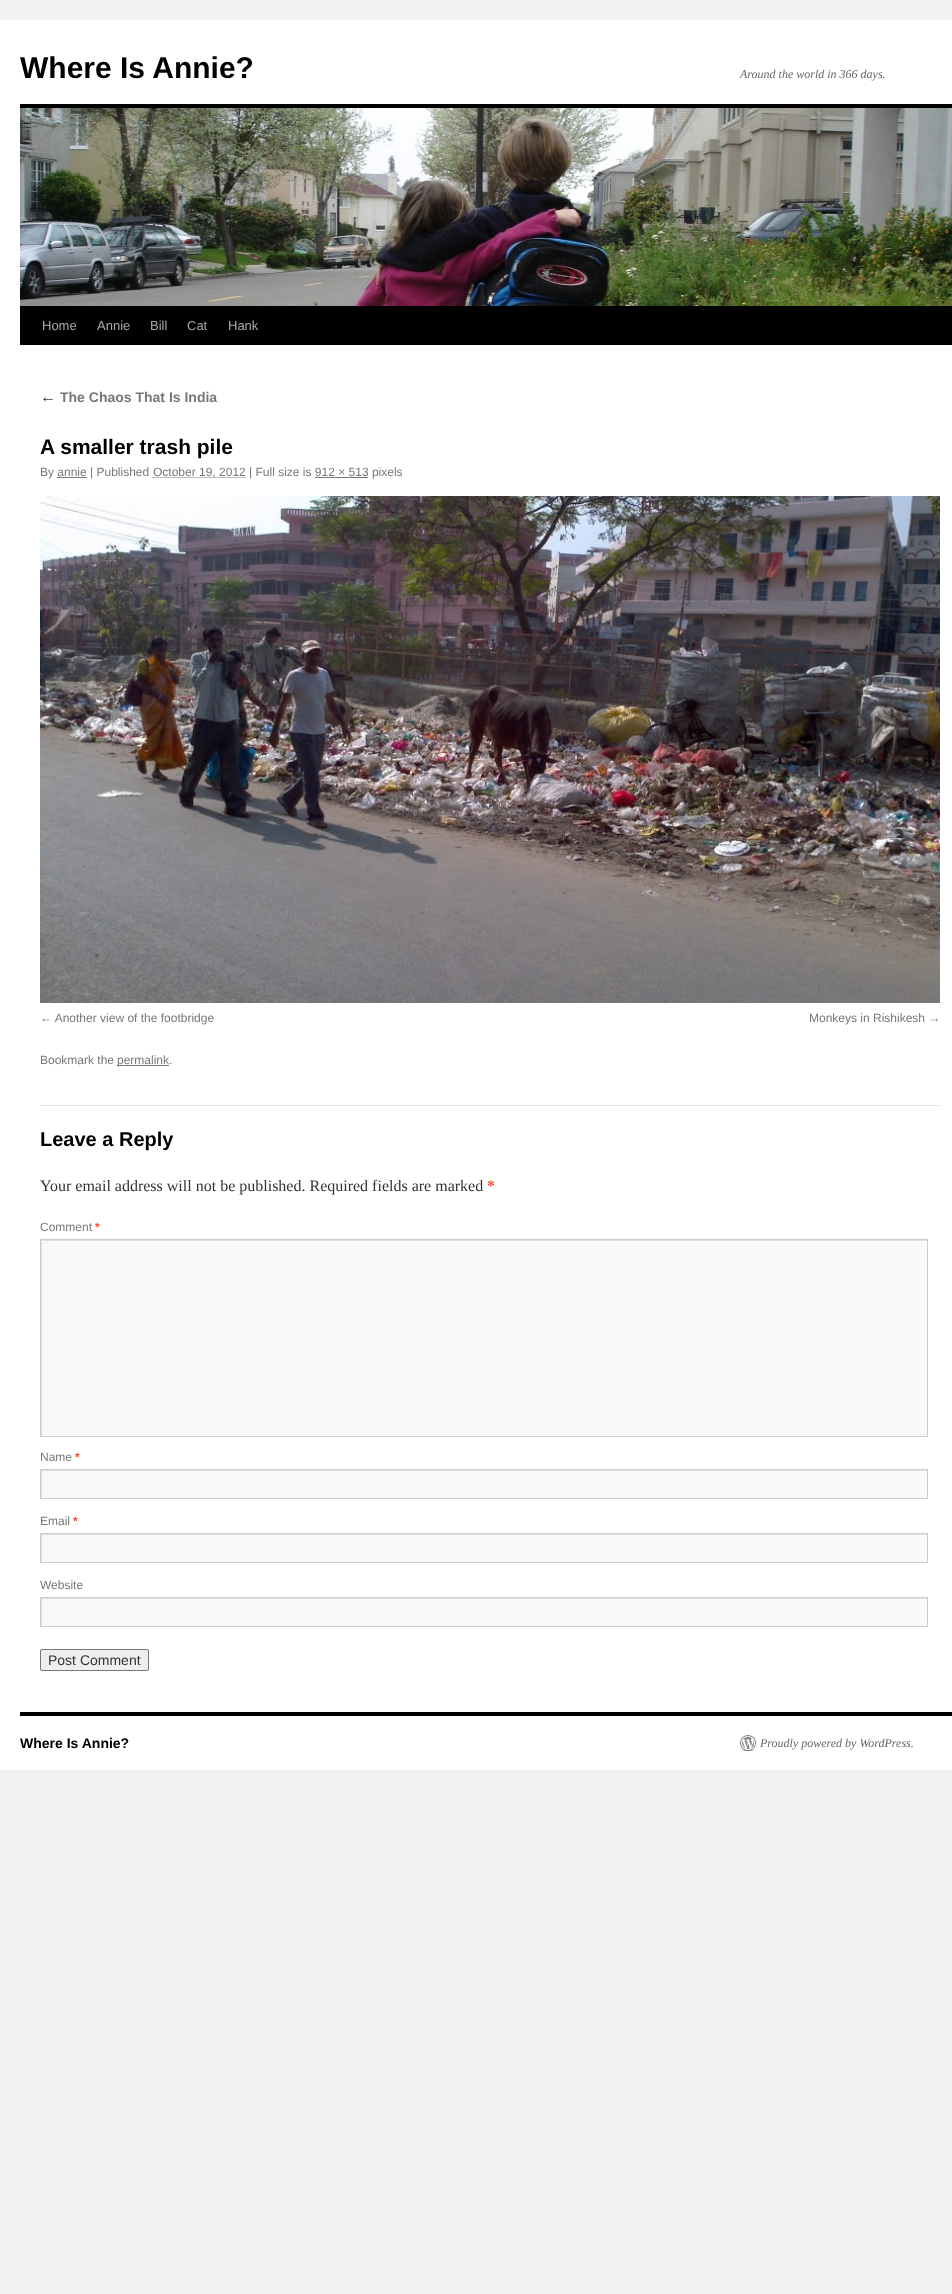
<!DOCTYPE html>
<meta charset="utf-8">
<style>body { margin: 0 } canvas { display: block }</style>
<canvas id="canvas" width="952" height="2294"></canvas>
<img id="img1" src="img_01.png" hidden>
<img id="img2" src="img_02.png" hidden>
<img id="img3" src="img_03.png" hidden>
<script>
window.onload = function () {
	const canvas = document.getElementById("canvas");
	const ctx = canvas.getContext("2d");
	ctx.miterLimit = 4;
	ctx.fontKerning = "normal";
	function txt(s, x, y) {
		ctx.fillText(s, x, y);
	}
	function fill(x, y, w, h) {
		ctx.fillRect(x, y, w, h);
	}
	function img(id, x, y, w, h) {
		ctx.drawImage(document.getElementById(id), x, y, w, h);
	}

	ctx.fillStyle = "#F1F1F1";
	fill(0, 0, 952, 2294);
	ctx.fillStyle = "#FFFFFF";
	fill(0, 20, 952, 1750);
	ctx.fillStyle = "#000000";
	fill(20, 104, 932, 4);
	fill(20, 306, 932, 39);
	img("img1", 20, 108, 932, 198);
	ctx.beginPath();
	ctx.moveTo(152.5, 477.5);
	ctx.lineTo(245.5, 477.5);
	ctx.strokeStyle = "#777777";
	ctx.setLineDash([1, 1]);
	ctx.stroke();
	ctx.fillStyle = "#777777";
	fill(57, 477, 30, 1);
	fill(315, 477, 53, 1);
	img("img2", 40, 496, 900, 507);
	fill(117, 1065, 52, 1);
	ctx.fillStyle = "#E7E7E7";
	fill(40, 1105, 900, 1);
	ctx.fillStyle = "#F9F9F9";
	fill(42, 1241, 885, 195);
	ctx.save();
	ctx.beginPath();
	ctx.rect(41, 1240, 886, 196);
	ctx.clip();
	ctx.fillStyle = "#E0E0E0";
	ctx.beginPath();
	ctx.moveTo(-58, 1141);
	ctx.lineTo(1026, 1141);
	ctx.lineTo(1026, 1535);
	ctx.lineTo(-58, 1535);
	ctx.closePath();
	ctx.moveTo(42, 1241);
	ctx.lineTo(928, 1241);
	ctx.lineTo(928, 1437);
	ctx.lineTo(42, 1437);
	ctx.closePath();
	ctx.fill("evenodd");
	ctx.restore();
	ctx.strokeStyle = "#CCCCCC";
	ctx.setLineDash([]);
	ctx.strokeRect(40.5, 1239.5, 887, 197);
	fill(42, 1471, 885, 27);
	ctx.save();
	ctx.beginPath();
	ctx.rect(41, 1470, 886, 28);
	ctx.clip();
	ctx.fillStyle = "#E0E0E0";
	ctx.beginPath();
	ctx.moveTo(-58, 1371);
	ctx.lineTo(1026, 1371);
	ctx.lineTo(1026, 1597);
	ctx.lineTo(-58, 1597);
	ctx.closePath();
	ctx.moveTo(42, 1471);
	ctx.lineTo(928, 1471);
	ctx.lineTo(928, 1499);
	ctx.lineTo(42, 1499);
	ctx.closePath();
	ctx.fill("evenodd");
	ctx.restore();
	ctx.strokeRect(40.5, 1469.5, 887, 29);
	fill(42, 1535, 885, 27);
	ctx.save();
	ctx.beginPath();
	ctx.rect(41, 1534, 886, 28);
	ctx.clip();
	ctx.fillStyle = "#E0E0E0";
	ctx.beginPath();
	ctx.moveTo(-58, 1435);
	ctx.lineTo(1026, 1435);
	ctx.lineTo(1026, 1661);
	ctx.lineTo(-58, 1661);
	ctx.closePath();
	ctx.moveTo(42, 1535);
	ctx.lineTo(928, 1535);
	ctx.lineTo(928, 1563);
	ctx.lineTo(42, 1563);
	ctx.closePath();
	ctx.fill("evenodd");
	ctx.restore();
	ctx.strokeRect(40.5, 1533.5, 887, 29);
	fill(42, 1599, 885, 27);
	ctx.save();
	ctx.beginPath();
	ctx.rect(41, 1598, 886, 28);
	ctx.clip();
	ctx.fillStyle = "#E0E0E0";
	ctx.beginPath();
	ctx.moveTo(-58, 1499);
	ctx.lineTo(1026, 1499);
	ctx.lineTo(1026, 1725);
	ctx.lineTo(-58, 1725);
	ctx.closePath();
	ctx.moveTo(42, 1599);
	ctx.lineTo(928, 1599);
	ctx.lineTo(928, 1627);
	ctx.lineTo(42, 1627);
	ctx.closePath();
	ctx.fill("evenodd");
	ctx.restore();
	ctx.strokeRect(40.5, 1597.5, 887, 29);
	ctx.fillStyle = "#EFEFEF";
	ctx.beginPath();
	ctx.roundRect(40.5, 1649.5, 108, 21, 1.5);
	ctx.fill();
	ctx.strokeStyle = "#767676";
	ctx.stroke();
	ctx.fillStyle = "#000000";
	fill(20, 1712, 932, 4);
	img("img3", 740, 1735, 16, 16);
	ctx.font = "bold 30px Liberation Sans";
	txt("Where Is Annie?", 20, 78);
	ctx.font = "italic 12px Liberation Serif";
	ctx.fillStyle = "#666666";
	txt("Around the world in 366 days.", 740, 78);
	ctx.font = "13px Liberation Sans";
	ctx.fillStyle = "#AAAAAA";
	txt("Home", 42, 330);
	txt("Annie", 97, 330);
	txt("Bill", 150, 330);
	txt("Cat", 187, 330);
	txt("Hank", 228, 330);
	ctx.font = "italic 16px Liberation Serif";
	ctx.fillStyle = "#333333";
	txt("←", 40, 402);
	ctx.font = "bold 14px Liberation Sans";
	ctx.fillStyle = "#777777";
	txt("The Chaos That Is India", 60, 402);
	ctx.font = "bold 21px Liberation Sans";
	ctx.fillStyle = "#000000";
	txt("A smaller trash pile", 40, 454);
	ctx.font = "12px Liberation Sans";
	ctx.fillStyle = "#777777";
	txt("By annie | Published", 40, 476);
	txt("October 19, 2012 | Full size is 912 × 513 pixels", 153, 476);
	txt("← Another view of the footbridge", 40, 1022);
	txt("Monkeys in Rishikesh →", 809, 1022);
	txt("Bookmark the", 40, 1064);
	txt("permalink.", 117, 1064);
	ctx.font = "bold 20px Liberation Sans";
	ctx.fillStyle = "#000000";
	txt("Leave a Reply", 40, 1146);
	ctx.font = "16px Liberation Serif";
	ctx.fillStyle = "#333333";
	txt("Your email address will not be published. Required fields are marked", 40, 1191);
	ctx.font = "bold 16px Liberation Serif";
	ctx.fillStyle = "#FF4B33";
	txt("*", 487, 1191);
	ctx.font = "12px Liberation Sans";
	ctx.fillStyle = "#777777";
	txt("Comment", 40, 1231);
	ctx.font = "bold 12px Liberation Sans";
	ctx.fillStyle = "#FF4B33";
	txt("*", 95, 1231);
	ctx.font = "12px Liberation Sans";
	ctx.fillStyle = "#777777";
	txt("Name", 40, 1461);
	ctx.font = "bold 12px Liberation Sans";
	ctx.fillStyle = "#FF4B33";
	txt("*", 75, 1461);
	ctx.font = "12px Liberation Sans";
	ctx.fillStyle = "#777777";
	txt("Email", 40, 1525);
	ctx.font = "bold 12px Liberation Sans";
	ctx.fillStyle = "#FF4B33";
	txt("*", 73, 1525);
	ctx.font = "12px Liberation Sans";
	ctx.fillStyle = "#777777";
	txt("Website", 40, 1589);
	ctx.font = "14px Liberation Sans";
	ctx.fillStyle = "#333333";
	txt("Post Comment", 48, 1665);
	ctx.font = "bold 14px Liberation Sans";
	ctx.fillStyle = "#000000";
	txt("Where Is Annie?", 20, 1748);
	ctx.font = "italic 12px Liberation Serif";
	ctx.fillStyle = "#666666";
	txt("Proudly powered by WordPress.", 760, 1747);
};
</script>
